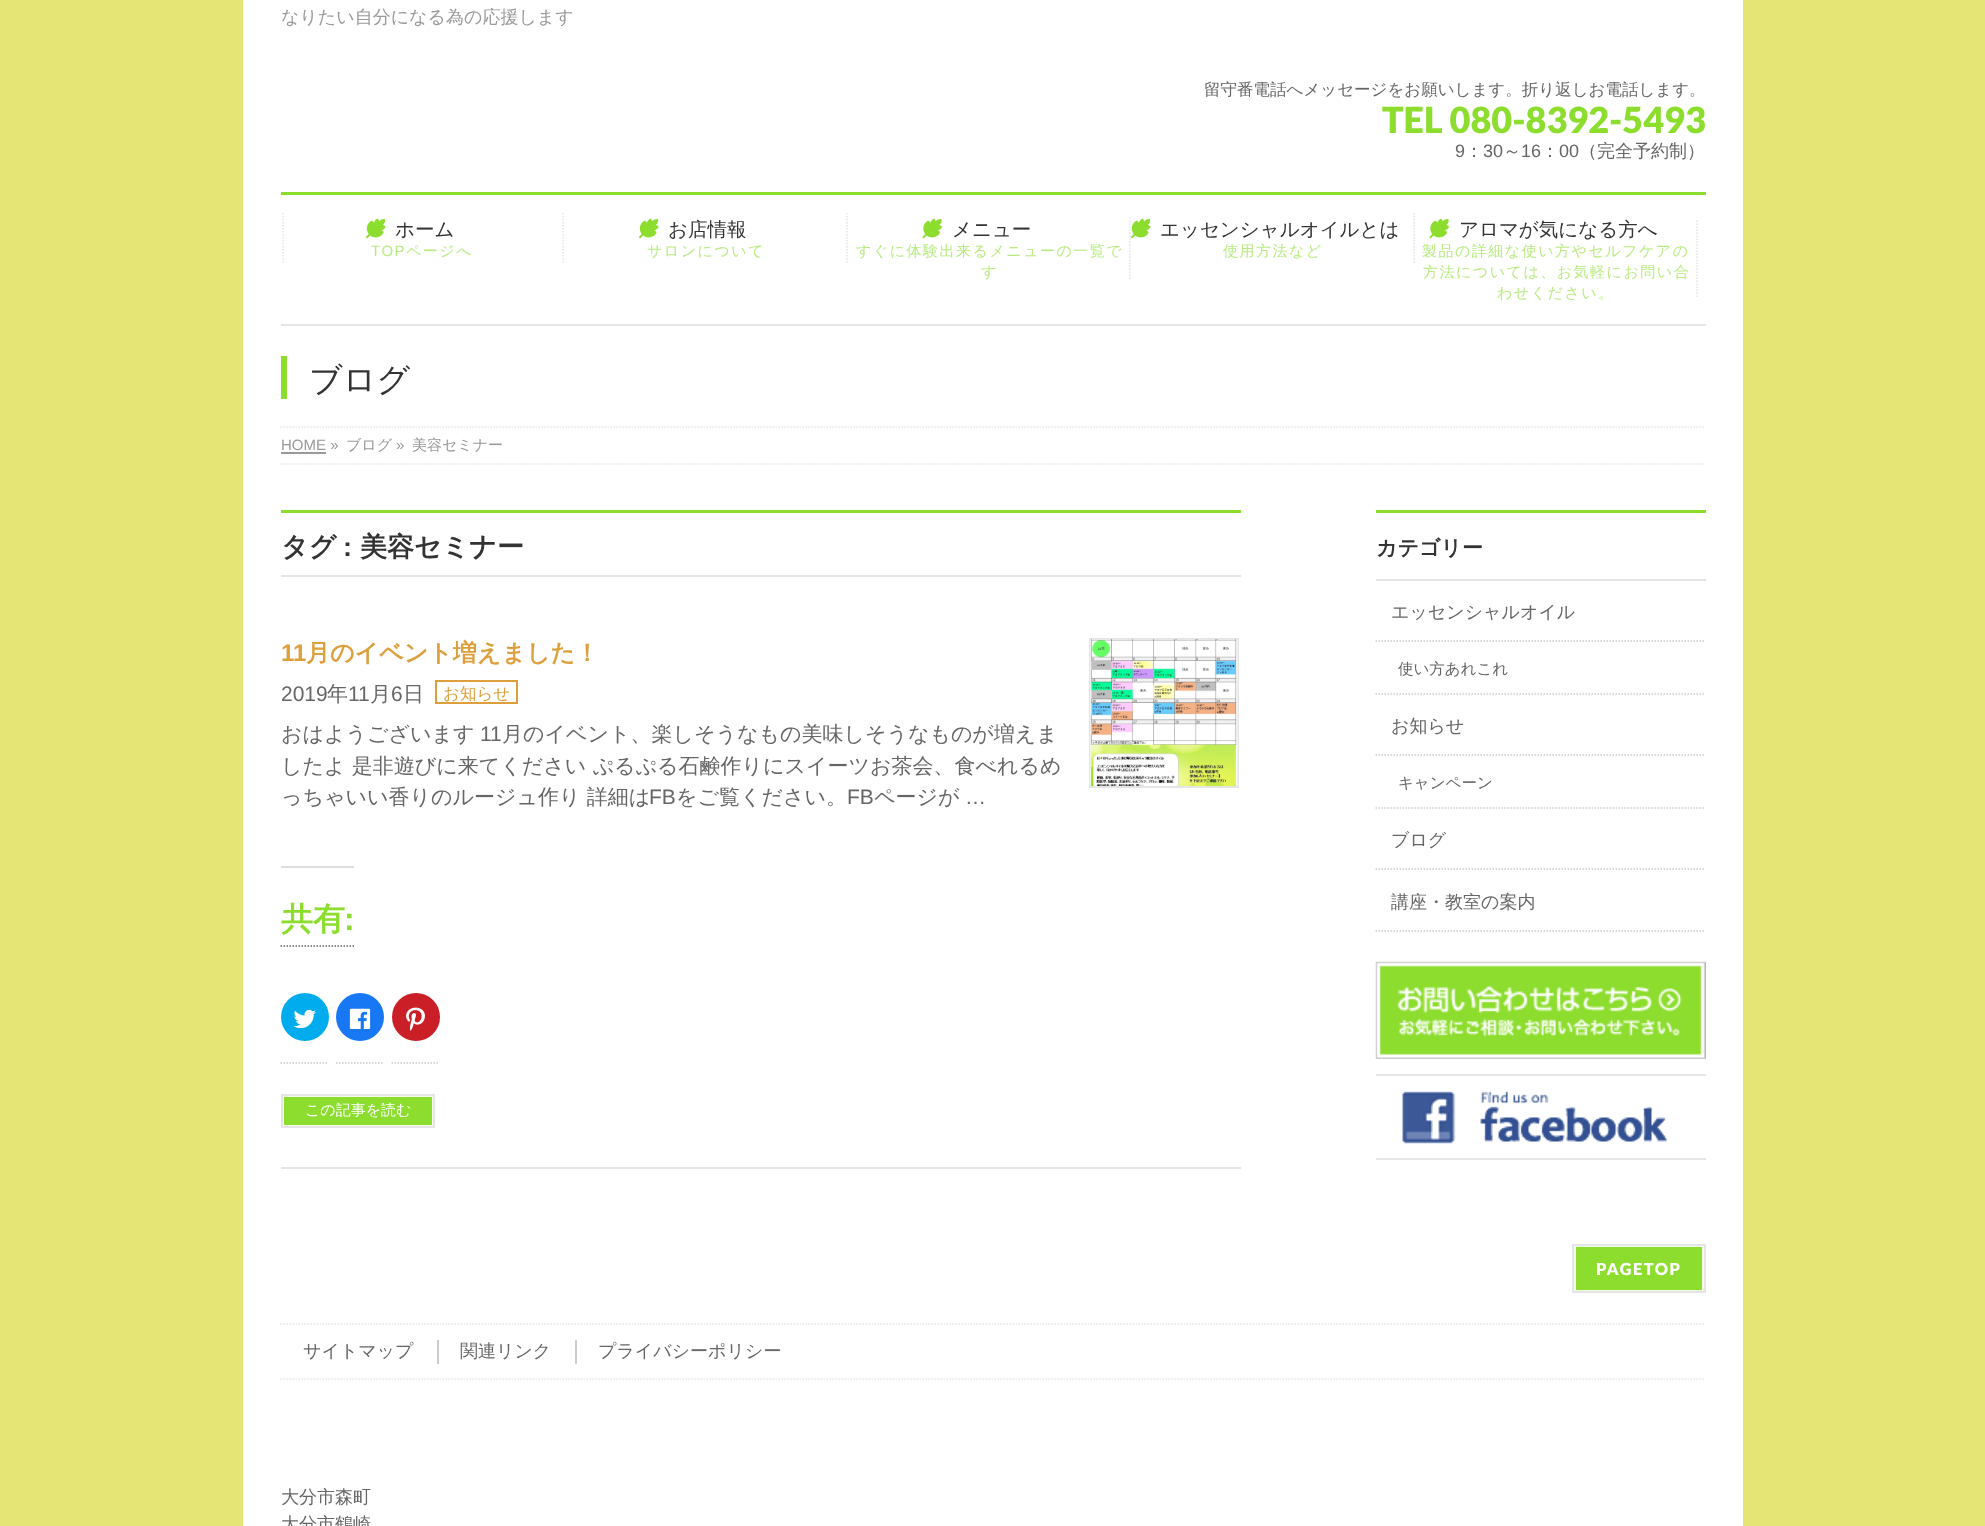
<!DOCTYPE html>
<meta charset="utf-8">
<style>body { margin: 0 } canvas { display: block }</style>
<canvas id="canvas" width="1985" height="1526"></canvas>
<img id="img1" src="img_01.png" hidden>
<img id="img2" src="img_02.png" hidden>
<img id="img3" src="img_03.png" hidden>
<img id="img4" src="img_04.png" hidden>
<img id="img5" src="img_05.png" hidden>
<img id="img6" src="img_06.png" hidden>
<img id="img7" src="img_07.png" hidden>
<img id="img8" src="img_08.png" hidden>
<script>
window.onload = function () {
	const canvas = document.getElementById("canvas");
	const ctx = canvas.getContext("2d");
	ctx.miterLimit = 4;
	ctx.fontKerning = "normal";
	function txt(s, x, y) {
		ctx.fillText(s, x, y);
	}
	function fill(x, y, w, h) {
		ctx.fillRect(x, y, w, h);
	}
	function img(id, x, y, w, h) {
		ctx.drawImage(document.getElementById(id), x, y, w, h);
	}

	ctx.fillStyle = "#E5E575";
	fill(0, 0, 1985, 1526);
	ctx.fillStyle = "#FFFFFF";
	fill(243, 0, 1500, 326);
	ctx.fillStyle = "#8CDD2E";
	fill(281, 192, 1425, 3);
	ctx.fillStyle = "#E5E5E5";
	fill(281, 324, 1425, 2);
	ctx.beginPath();
	ctx.moveTo(283, 213);
	ctx.lineTo(283, 264);
	ctx.strokeStyle = "#E5E5E5";
	ctx.lineWidth = 1.5;
	ctx.setLineDash([1.5, 1.5]);
	ctx.stroke();
	img("img1", 366, 218, 20, 21);
	ctx.beginPath();
	ctx.moveTo(563, 213);
	ctx.lineTo(563, 264);
	ctx.stroke();
	img("img1", 639, 218, 20, 21);
	ctx.beginPath();
	ctx.moveTo(847, 213);
	ctx.lineTo(847, 264);
	ctx.stroke();
	img("img2", 922, 218, 20, 21);
	ctx.beginPath();
	ctx.moveTo(1130, 217.5);
	ctx.lineTo(1130, 280.5);
	ctx.stroke();
	img("img1", 1131, 218, 20, 21);
	ctx.beginPath();
	ctx.moveTo(1414, 213);
	ctx.lineTo(1414, 264);
	ctx.stroke();
	img("img2", 1429, 218, 20, 21);
	ctx.beginPath();
	ctx.moveTo(1697, 220.5);
	ctx.lineTo(1697, 298.5);
	ctx.stroke();
	ctx.fillStyle = "#FFFFFF";
	fill(243, 326, 1500, 100);
	ctx.fillStyle = "#8CDD2E";
	fill(281, 356, 6, 43);
	ctx.fillStyle = "#FFFFFF";
	fill(243, 426, 1500, 897);
	ctx.beginPath();
	ctx.moveTo(280.5, 427);
	ctx.lineTo(1705.5, 427);
	ctx.stroke();
	ctx.beginPath();
	ctx.moveTo(280.5, 464);
	ctx.lineTo(1705.5, 464);
	ctx.stroke();
	ctx.fillStyle = "#999999";
	fill(281, 452, 45, 2);
	ctx.fillStyle = "#8CDD2E";
	fill(281, 510, 960, 3);
	ctx.fillStyle = "#E5E5E5";
	fill(281, 575, 960, 2);
	fill(281, 1167, 960, 2);
	ctx.strokeStyle = "#DD9F3B";
	ctx.lineWidth = 2;
	ctx.setLineDash([]);
	ctx.strokeRect(436, 681, 81, 22);
	ctx.beginPath();
	ctx.moveTo(280.5, 946);
	ctx.lineTo(354, 946);
	ctx.strokeStyle = "#666666";
	ctx.lineWidth = 1.5;
	ctx.setLineDash([1.5, 1.5]);
	ctx.stroke();
	ctx.fillStyle = "#DDDDDD";
	fill(281, 866, 73, 2);
	ctx.beginPath();
	ctx.moveTo(280.5, 1063);
	ctx.lineTo(328.5, 1063);
	ctx.strokeStyle = "#CCCCCC";
	ctx.stroke();
	ctx.fillStyle = "#00ACEE";
	ctx.beginPath();
	ctx.arc(305, 1017, 24, 0, Math.PI * 2);
	ctx.fill();
	img("img3", 293, 1009, 23, 20);
	ctx.beginPath();
	ctx.moveTo(336, 1063);
	ctx.lineTo(384, 1063);
	ctx.stroke();
	ctx.fillStyle = "#1877F2";
	ctx.beginPath();
	ctx.arc(360, 1017, 24, 0, Math.PI * 2);
	ctx.fill();
	img("img4", 349, 1008, 22, 21);
	ctx.beginPath();
	ctx.moveTo(391.5, 1063);
	ctx.lineTo(439.5, 1063);
	ctx.stroke();
	ctx.fillStyle = "#CA1F27";
	ctx.beginPath();
	ctx.arc(416, 1017, 24, 0, Math.PI * 2);
	ctx.fill();
	img("img5", 406, 1007, 19, 24);
	ctx.fillStyle = "#8CDD2E";
	ctx.beginPath();
	ctx.rect(283, 1096, 150, 30);
	ctx.fill();
	ctx.strokeStyle = "#F4FCEA";
	ctx.lineWidth = 2;
	ctx.setLineDash([]);
	ctx.stroke();
	ctx.strokeStyle = "#E5E5E5";
	ctx.strokeRect(282, 1095, 152, 32);
	ctx.strokeRect(1090, 639, 148, 148);
	img("img6", 1090, 639, 148, 147);
	fill(1376, 510, 330, 3);
	ctx.fillStyle = "#E5E5E5";
	fill(1376, 579, 330, 2);
	ctx.beginPath();
	ctx.moveTo(1375.5, 694);
	ctx.lineTo(1705.5, 694);
	ctx.strokeStyle = "#CCCCCC";
	ctx.lineWidth = 1.5;
	ctx.setLineDash([1.5, 1.5]);
	ctx.stroke();
	ctx.beginPath();
	ctx.moveTo(1375.5, 641);
	ctx.lineTo(1705.5, 641);
	ctx.stroke();
	ctx.beginPath();
	ctx.moveTo(1375.5, 808);
	ctx.lineTo(1705.5, 808);
	ctx.stroke();
	ctx.beginPath();
	ctx.moveTo(1375.5, 755);
	ctx.lineTo(1705.5, 755);
	ctx.stroke();
	ctx.beginPath();
	ctx.moveTo(1375.5, 869);
	ctx.lineTo(1705.5, 869);
	ctx.stroke();
	ctx.beginPath();
	ctx.moveTo(1375.5, 931);
	ctx.lineTo(1705.5, 931);
	ctx.stroke();
	ctx.fillStyle = "#8CDD2E";
	fill(1379, 962, 327, 97);
	img("img7", 1375, 961, 331, 98);
	ctx.fillStyle = "#E5E5E5";
	fill(1376, 1074, 330, 2);
	fill(1376, 1158, 330, 2);
	img("img8", 1402, 1091, 265, 53);
	ctx.fillStyle = "#8CDD2E";
	ctx.beginPath();
	ctx.rect(1575, 1246, 128, 45);
	ctx.fill();
	ctx.strokeStyle = "#F4FCEA";
	ctx.lineWidth = 2;
	ctx.setLineDash([]);
	ctx.stroke();
	ctx.strokeStyle = "#E5E5E5";
	ctx.strokeRect(1573, 1245, 132, 47);
	ctx.fillStyle = "#FFFFFF";
	fill(243, 1323, 1500, 203);
	ctx.beginPath();
	ctx.moveTo(280.5, 1324);
	ctx.lineTo(1705.5, 1324);
	ctx.lineWidth = 1.5;
	ctx.setLineDash([1.5, 1.5]);
	ctx.stroke();
	ctx.beginPath();
	ctx.moveTo(280.5, 1379);
	ctx.lineTo(1705.5, 1379);
	ctx.stroke();
	ctx.fillStyle = "#CCCCCC";
	fill(437, 1340, 2, 24);
	fill(575, 1340, 2, 24);
	ctx.font = "500 18px WenQuanYi Zen Hei";
	ctx.fillStyle = "#999999";
	txt("なりたい自分になる為の応援します", 281, 23);
	ctx.font = "500 16.5px WenQuanYi Zen Hei";
	ctx.fillStyle = "#666666";
	txt("留守番電話へメッセージをお願いします。折り返しお電話します。", 1204, 95);
	ctx.font = "900 36px Lato";
	ctx.fillStyle = "#8CDD2E";
	txt("TEL 080-8392-5493", 1382, 133);
	ctx.font = "18px Liberation Sans";
	ctx.fillStyle = "#666666";
	txt("9", 1455, 157);
	ctx.font = "500 18px WenQuanYi Zen Hei";
	txt("：", 1465, 157);
	ctx.font = "18px Liberation Sans";
	txt("30", 1483, 157);
	ctx.font = "500 18px WenQuanYi Zen Hei";
	txt("～", 1503, 157);
	ctx.font = "18px Liberation Sans";
	txt("16", 1521, 157);
	ctx.font = "500 18px WenQuanYi Zen Hei";
	txt("：", 1541, 157);
	ctx.font = "18px Liberation Sans";
	txt("00", 1559, 157);
	ctx.font = "500 18px WenQuanYi Zen Hei";
	txt("（完全予約制）", 1579, 157);
	ctx.font = "500 19.5px WenQuanYi Zen Hei";
	ctx.fillStyle = "#333333";
	txt("ホーム", 395, 236);
	ctx.letterSpacing = "1.5px";
	ctx.font = "15px Liberation Sans";
	ctx.fillStyle = "#BAEB82";
	txt("TOP", 371, 256);
	ctx.font = "500 15px WenQuanYi Zen Hei";
	txt("ページへ", 406, 256);
	ctx.letterSpacing = "0px";
	ctx.font = "500 19.5px WenQuanYi Zen Hei";
	ctx.fillStyle = "#333333";
	txt("お店情報", 668, 236);
	ctx.letterSpacing = "1.5px";
	ctx.font = "500 15px WenQuanYi Zen Hei";
	ctx.fillStyle = "#BAEB82";
	txt("サロンについて", 647, 256);
	ctx.letterSpacing = "0px";
	ctx.font = "500 19.5px WenQuanYi Zen Hei";
	ctx.fillStyle = "#333333";
	txt("メニュー", 952, 236);
	ctx.letterSpacing = "1.5px";
	ctx.font = "500 15px WenQuanYi Zen Hei";
	ctx.fillStyle = "#BAEB82";
	txt("すぐに体験出来るメニューの一覧で", 856, 256);
	txt("す", 981, 277);
	ctx.letterSpacing = "0px";
	ctx.font = "500 19.5px WenQuanYi Zen Hei";
	ctx.fillStyle = "#333333";
	txt("エッセンシャルオイルとは", 1160, 236);
	ctx.letterSpacing = "1.5px";
	ctx.font = "500 15px WenQuanYi Zen Hei";
	ctx.fillStyle = "#BAEB82";
	txt("使用方法など", 1223, 256);
	ctx.letterSpacing = "0px";
	ctx.font = "500 19.5px WenQuanYi Zen Hei";
	ctx.fillStyle = "#333333";
	txt("アロマが気になる方へ", 1459, 236);
	ctx.letterSpacing = "1.5px";
	ctx.font = "500 15px WenQuanYi Zen Hei";
	ctx.fillStyle = "#BAEB82";
	txt("製品の詳細な使い方やセルフケアの", 1422, 256);
	txt("方法については、お気軽にお問い合", 1423, 277);
	txt("わせください。", 1497, 298);
	ctx.letterSpacing = "0px";
	ctx.font = "500 33px WenQuanYi Zen Hei";
	ctx.fillStyle = "#333333";
	txt("ブログ", 309, 391);
	ctx.font = "15px Liberation Sans";
	ctx.fillStyle = "#999999";
	txt("HOME »", 281, 450);
	ctx.font = "500 15px WenQuanYi Zen Hei";
	txt("ブログ", 346, 450);
	ctx.font = "15px Liberation Sans";
	txt("»", 396, 450);
	ctx.font = "500 15px WenQuanYi Zen Hei";
	txt("美容セミナー", 412, 450);
	ctx.font = "bold 27px WenQuanYi Zen Hei";
	ctx.fillStyle = "#333333";
	txt("タグ", 281, 556);
	ctx.font = "bold 27px Liberation Sans";
	txt(":", 343, 556);
	ctx.font = "bold 27px WenQuanYi Zen Hei";
	txt("美容セミナー", 360, 556);
	ctx.font = "bold 24px Liberation Sans";
	ctx.fillStyle = "#DD9F3B";
	txt("11", 281, 661);
	ctx.font = "bold 24px WenQuanYi Zen Hei";
	txt("月のイベント増えました！", 306, 661);
	ctx.font = "21px Liberation Sans";
	ctx.fillStyle = "#666666";
	txt("2019", 281, 701);
	ctx.font = "500 21px WenQuanYi Zen Hei";
	txt("年", 327, 701);
	ctx.font = "21px Liberation Sans";
	txt("11", 348, 701);
	ctx.font = "500 21px WenQuanYi Zen Hei";
	txt("月", 370, 701);
	ctx.font = "21px Liberation Sans";
	txt("6", 391, 701);
	ctx.font = "500 21px WenQuanYi Zen Hei";
	txt("日", 403, 701);
	ctx.font = "500 16.5px WenQuanYi Zen Hei";
	ctx.fillStyle = "#DD9F3B";
	txt("お知らせ", 443, 699);
	ctx.font = "500 21px WenQuanYi Zen Hei";
	ctx.fillStyle = "#666666";
	txt("おはようございます", 281, 741);
	ctx.font = "21px Liberation Sans";
	txt("11", 480, 741);
	ctx.font = "500 21px WenQuanYi Zen Hei";
	txt("月のイベント、楽しそうなもの美味しそうなものが増えま", 502, 741);
	txt("したよ 是非遊びに来てください ぷるぷる石鹸作りにスイーツお茶会、食べれるめ", 281, 773);
	txt("っちゃいい香りのルージュ作り 詳細は", 281, 804);
	ctx.font = "21px Liberation Sans";
	txt("FB", 649, 804);
	ctx.font = "500 21px WenQuanYi Zen Hei";
	txt("をご覧ください。", 676, 804);
	ctx.font = "21px Liberation Sans";
	txt("FB", 847, 804);
	ctx.font = "500 21px WenQuanYi Zen Hei";
	txt("ページが", 874, 804);
	ctx.font = "21px Liberation Sans";
	txt("…", 965, 804);
	ctx.font = "bold 32px WenQuanYi Zen Hei";
	ctx.fillStyle = "#8CDD2E";
	txt("共有", 281, 930);
	ctx.font = "bold 32px Liberation Sans";
	txt(":", 344, 930);
	ctx.font = "500 15px WenQuanYi Zen Hei";
	ctx.fillStyle = "#FFFFFF";
	txt("この記事を読む", 305, 1115);
	ctx.font = "bold 21px WenQuanYi Zen Hei";
	ctx.fillStyle = "#333333";
	txt("カテゴリー", 1376, 555);
	ctx.font = "500 18px WenQuanYi Zen Hei";
	ctx.fillStyle = "#666666";
	txt("エッセンシャルオイル", 1391, 618);
	ctx.font = "500 15.5px WenQuanYi Zen Hei";
	txt("使い方あれこれ", 1398, 674);
	ctx.font = "500 18px WenQuanYi Zen Hei";
	txt("お知らせ", 1391, 732);
	ctx.font = "500 15.5px WenQuanYi Zen Hei";
	txt("キャンペーン", 1398, 788);
	ctx.font = "500 18px WenQuanYi Zen Hei";
	txt("ブログ", 1391, 846);
	txt("講座・教室の案内", 1391, 908);
	ctx.letterSpacing = "1.5px";
	ctx.font = "900 16.5px Lato";
	ctx.fillStyle = "#FFFFFF";
	txt("PAGETOP", 1596, 1275);
	ctx.letterSpacing = "0px";
	ctx.font = "500 18px WenQuanYi Zen Hei";
	ctx.fillStyle = "#666666";
	txt("サイトマップ", 303, 1357);
	txt("関連リンク", 460, 1357);
	txt("プライバシーポリシー", 598, 1357);
	txt("大分市森町", 281, 1503);
	txt("大分市鶴崎", 281, 1530);
};
</script>
